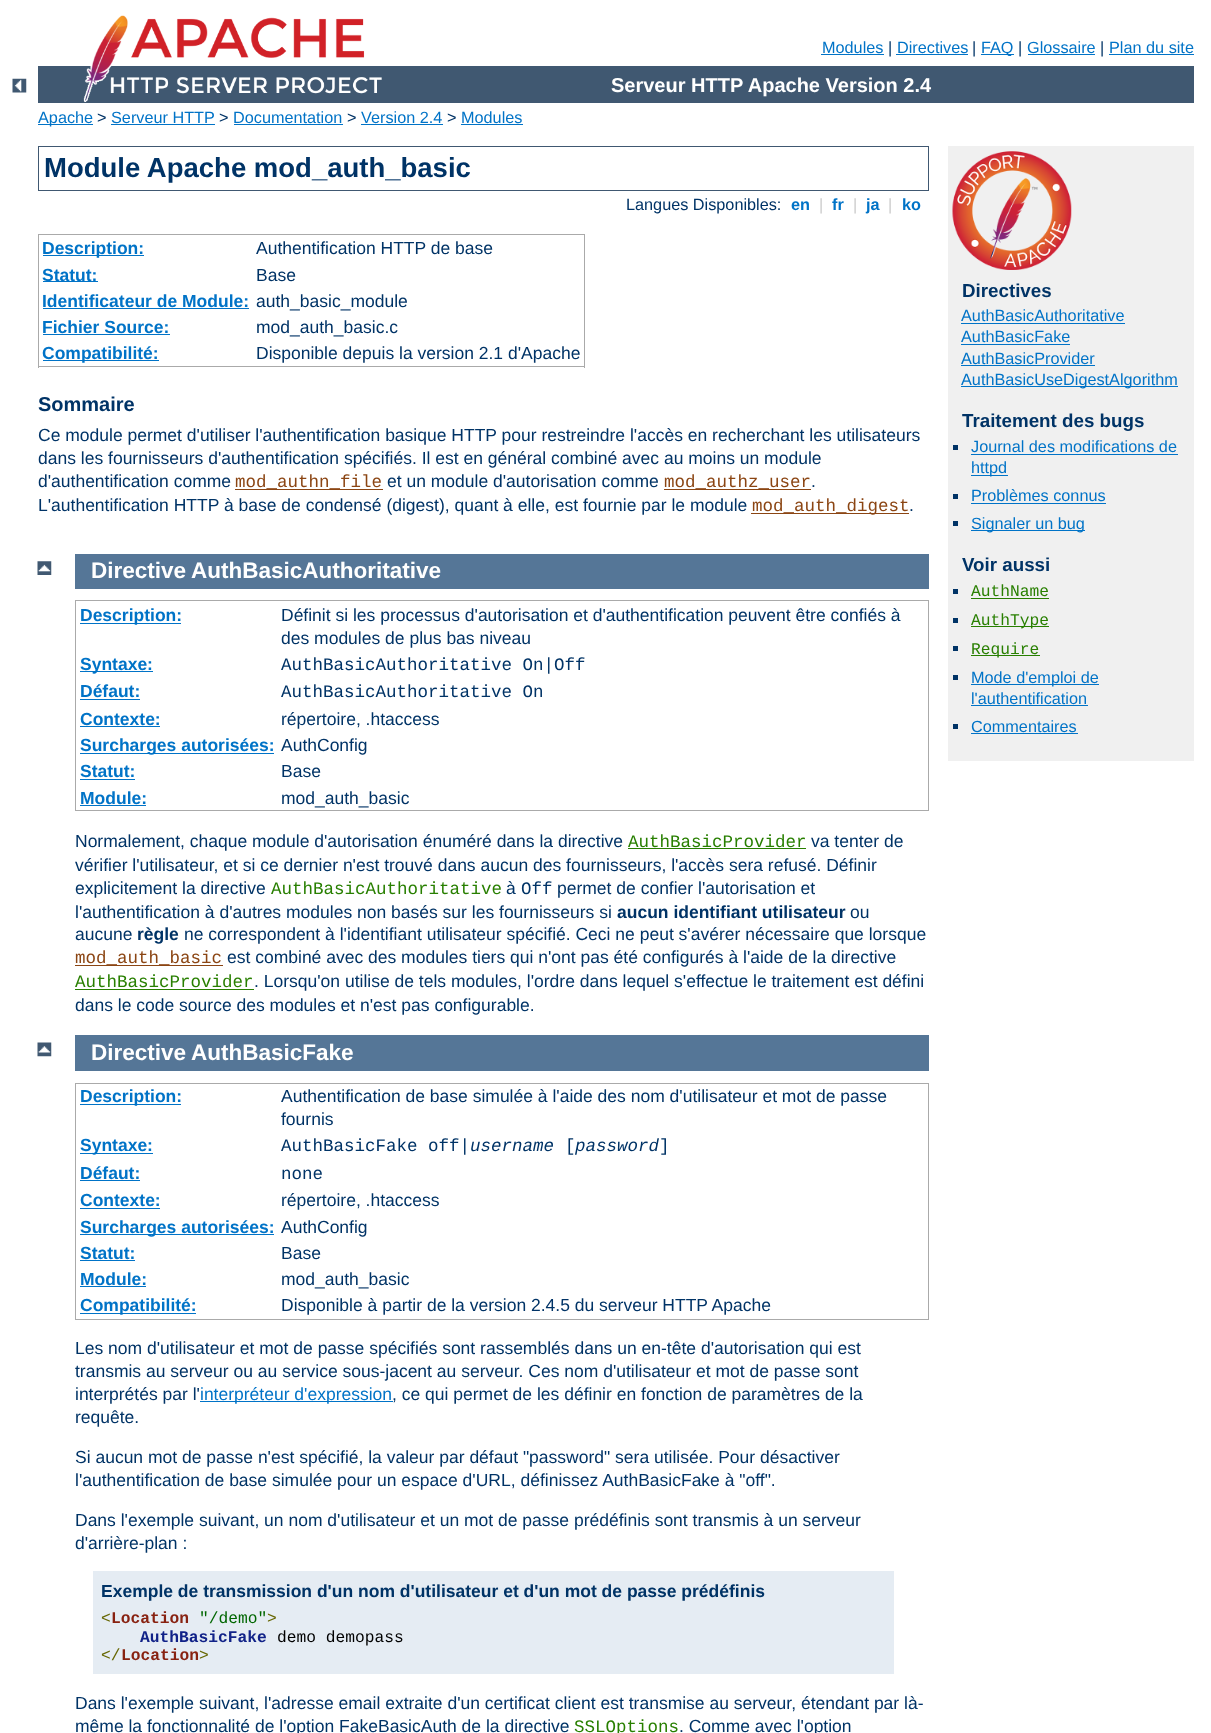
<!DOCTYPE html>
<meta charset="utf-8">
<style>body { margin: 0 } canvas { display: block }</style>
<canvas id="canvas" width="1211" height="1733"></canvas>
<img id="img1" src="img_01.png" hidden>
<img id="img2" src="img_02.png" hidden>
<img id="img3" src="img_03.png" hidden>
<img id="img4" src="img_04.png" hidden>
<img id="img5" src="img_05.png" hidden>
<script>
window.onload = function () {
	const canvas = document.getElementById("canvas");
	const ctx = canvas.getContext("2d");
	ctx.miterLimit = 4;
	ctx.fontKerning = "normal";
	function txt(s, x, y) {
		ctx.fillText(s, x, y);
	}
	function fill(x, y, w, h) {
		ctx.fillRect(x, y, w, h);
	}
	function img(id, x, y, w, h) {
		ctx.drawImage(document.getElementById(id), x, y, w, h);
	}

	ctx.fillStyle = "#FFFFFF";
	fill(0, 0, 1211, 1733);
	img("img1", 12, 78, 15, 15);
	ctx.fillStyle = "#405871";
	fill(38, 66, 1156, 37);
	img("img2", 83, 15, 299, 87);
	ctx.fillStyle = "#0073C7";
	fill(821, 54, 63, 1);
	fill(896, 54, 72, 1);
	fill(981, 54, 33, 1);
	fill(1028, 54, 67, 1);
	fill(1109, 54, 85, 1);
	fill(38, 124, 55, 1);
	fill(111, 124, 104, 1);
	fill(234, 124, 109, 1);
	fill(361, 124, 82, 1);
	fill(461, 124, 62, 1);
	ctx.strokeStyle = "#405871";
	ctx.strokeRect(38.5, 146.5, 890, 44);
	ctx.fillStyle = "#AAAAAA";
	fill(38, 234, 547, 1);
	fill(584, 234, 1, 134);
	fill(38, 366, 547, 1);
	fill(38, 234, 1, 134);
	ctx.fillStyle = "#0073C7";
	fill(43, 255, 101, 1);
	fill(43, 281, 55, 1);
	fill(43, 308, 206, 1);
	fill(43, 334, 127, 1);
	fill(43, 360, 116, 1);
	ctx.fillStyle = "#8B4513";
	fill(235, 489, 148, 1);
	fill(664, 489, 147, 1);
	fill(751, 513, 158, 1);
	ctx.fillStyle = "#F0F0F0";
	fill(948, 146, 246, 615);
	img("img3", 952, 151, 120, 119);
	ctx.fillStyle = "#0073C7";
	fill(961, 323, 164, 1);
	fill(961, 344, 109, 1);
	fill(961, 365, 134, 1);
	fill(961, 386, 217, 1);
	ctx.fillStyle = "#003366";
	fill(953, 445, 5, 5);
	ctx.fillStyle = "#0073C7";
	fill(971, 454, 207, 1);
	fill(971, 475, 37, 1);
	ctx.fillStyle = "#003366";
	fill(953, 494, 5, 5);
	ctx.fillStyle = "#0073C7";
	fill(971, 503, 135, 1);
	ctx.fillStyle = "#003366";
	fill(953, 521, 5, 5);
	ctx.fillStyle = "#0073C7";
	fill(971, 530, 114, 1);
	ctx.fillStyle = "#003366";
	fill(953, 589, 5, 5);
	ctx.fillStyle = "#287F00";
	fill(971, 598, 78, 1);
	ctx.fillStyle = "#003366";
	fill(953, 618, 5, 5);
	ctx.fillStyle = "#287F00";
	fill(971, 626, 78, 1);
	ctx.fillStyle = "#003366";
	fill(953, 646, 5, 5);
	ctx.fillStyle = "#287F00";
	fill(971, 655, 69, 1);
	ctx.fillStyle = "#003366";
	fill(953, 675, 5, 5);
	ctx.fillStyle = "#0073C7";
	fill(971, 684, 128, 1);
	fill(971, 705, 117, 1);
	ctx.fillStyle = "#003366";
	fill(953, 724, 5, 5);
	ctx.fillStyle = "#0073C7";
	fill(971, 733, 107, 1);
	img("img4", 37, 561, 15, 14);
	ctx.fillStyle = "#557697";
	fill(75, 554, 854, 35);
	ctx.fillStyle = "#AAAAAA";
	fill(75, 600, 854, 1);
	fill(928, 600, 1, 211);
	fill(75, 810, 854, 1);
	fill(75, 600, 1, 211);
	ctx.fillStyle = "#0073C7";
	fill(80, 623, 101, 1);
	fill(80, 671, 73, 1);
	fill(80, 699, 60, 1);
	fill(80, 726, 80, 1);
	fill(80, 753, 194, 1);
	fill(80, 779, 55, 1);
	fill(80, 805, 66, 1);
	ctx.fillStyle = "#287F00";
	fill(628, 848, 178, 1);
	ctx.fillStyle = "#8B4513";
	fill(75, 965, 148, 1);
	ctx.fillStyle = "#287F00";
	fill(75, 989, 179, 1);
	img("img5", 37, 1042, 15, 15);
	ctx.fillStyle = "#557697";
	fill(75, 1035, 854, 36);
	ctx.fillStyle = "#AAAAAA";
	fill(75, 1083, 854, 1);
	fill(928, 1083, 1, 237);
	fill(75, 1319, 854, 1);
	fill(75, 1083, 1, 237);
	ctx.fillStyle = "#0073C7";
	fill(80, 1104, 101, 1);
	fill(80, 1153, 73, 1);
	fill(80, 1180, 60, 1);
	fill(80, 1208, 80, 1);
	fill(80, 1234, 194, 1);
	fill(80, 1260, 55, 1);
	fill(80, 1286, 66, 1);
	fill(80, 1313, 116, 1);
	fill(200, 1401, 193, 1);
	ctx.fillStyle = "#E5ECF3";
	fill(93, 1571, 801, 103);
	ctx.font = "16.25px Liberation Sans";
	ctx.fillStyle = "#0073C7";
	txt("Modules", 822, 53);
	ctx.fillStyle = "#003366";
	txt("|", 888, 53);
	ctx.fillStyle = "#0073C7";
	txt("Directives", 897, 53);
	ctx.fillStyle = "#003366";
	txt("|", 972, 53);
	ctx.fillStyle = "#0073C7";
	txt("FAQ", 981, 53);
	ctx.fillStyle = "#003366";
	txt("|", 1018, 53);
	ctx.fillStyle = "#0073C7";
	txt("Glossaire", 1027, 53);
	ctx.fillStyle = "#003366";
	txt("|", 1100, 53);
	ctx.fillStyle = "#0073C7";
	txt("Plan du site", 1109, 53);
	ctx.font = "bold 20px Liberation Sans";
	ctx.fillStyle = "#FFFFFF";
	txt("Serveur HTTP Apache Version 2.4", 611, 92);
	ctx.font = "16.25px Liberation Sans";
	ctx.fillStyle = "#0073C7";
	txt("Apache", 38, 123);
	ctx.fillStyle = "#003366";
	txt(">", 97, 123);
	ctx.fillStyle = "#0073C7";
	txt("Serveur HTTP", 111, 123);
	ctx.fillStyle = "#003366";
	txt(">", 219, 123);
	ctx.fillStyle = "#0073C7";
	txt("Documentation", 233, 123);
	ctx.fillStyle = "#003366";
	txt(">", 347, 123);
	ctx.fillStyle = "#0073C7";
	txt("Version 2.4", 361, 123);
	ctx.fillStyle = "#003366";
	txt(">", 447, 123);
	ctx.fillStyle = "#0073C7";
	txt("Modules", 461, 123);
	ctx.font = "bold 27.5px Liberation Sans";
	ctx.fillStyle = "#003366";
	txt("Module Apache mod_auth_basic", 44, 177);
	ctx.font = "16.25px Liberation Sans";
	txt("Langues Disponibles:", 626, 210);
	ctx.font = "bold 16.25px Liberation Sans";
	ctx.fillStyle = "#0073C7";
	txt("en", 791, 210);
	ctx.font = "16.25px Liberation Sans";
	ctx.fillStyle = "#CCCCCC";
	txt("|", 819, 210);
	ctx.font = "bold 16.25px Liberation Sans";
	ctx.fillStyle = "#0073C7";
	txt("fr", 832, 210);
	ctx.font = "16.25px Liberation Sans";
	ctx.fillStyle = "#CCCCCC";
	txt("|", 853, 210);
	ctx.font = "bold 16.25px Liberation Sans";
	ctx.fillStyle = "#0073C7";
	txt("ja", 866, 210);
	ctx.font = "16.25px Liberation Sans";
	ctx.fillStyle = "#CCCCCC";
	txt("|", 888, 210);
	ctx.font = "bold 16.25px Liberation Sans";
	ctx.fillStyle = "#0073C7";
	txt("ko", 902, 210);
	ctx.font = "bold 17.5px Liberation Sans";
	txt("Description:", 42, 254);
	ctx.font = "17.5px Liberation Sans";
	ctx.fillStyle = "#003366";
	txt("Authentification HTTP de base", 256, 254);
	ctx.font = "bold 17.5px Liberation Sans";
	ctx.fillStyle = "#0073C7";
	txt("Statut:", 42, 281);
	ctx.font = "17.5px Liberation Sans";
	ctx.fillStyle = "#003366";
	txt("Base", 256, 281);
	ctx.font = "bold 17.5px Liberation Sans";
	ctx.fillStyle = "#0073C7";
	txt("Identificateur de Module:", 42, 307);
	ctx.font = "17.5px Liberation Sans";
	ctx.fillStyle = "#003366";
	txt("auth_basic_module", 256, 307);
	ctx.font = "bold 17.5px Liberation Sans";
	ctx.fillStyle = "#0073C7";
	txt("Fichier Source:", 42, 333);
	ctx.font = "17.5px Liberation Sans";
	ctx.fillStyle = "#003366";
	txt("mod_auth_basic.c", 256, 333);
	ctx.font = "bold 17.5px Liberation Sans";
	ctx.fillStyle = "#0073C7";
	txt("Compatibilité:", 42, 359);
	ctx.font = "17.5px Liberation Sans";
	ctx.fillStyle = "#003366";
	txt("Disponible depuis la version 2.1 d'Apache", 256, 359);
	ctx.font = "bold 20px Liberation Sans";
	txt("Sommaire", 38, 411);
	ctx.font = "17.5px Liberation Sans";
	txt("Ce module permet d'utiliser l'authentification basique HTTP pour restreindre l'accès en recherchant les utilisateurs", 38, 441);
	txt("dans les fournisseurs d'authentification spécifiés. Il est en général combiné avec au moins un module", 38, 464);
	txt("d'authentification comme", 38, 487);
	ctx.font = "17.5px Liberation Mono";
	ctx.fillStyle = "#8B4513";
	txt("mod_authn_file", 235, 487);
	ctx.font = "17.5px Liberation Sans";
	ctx.fillStyle = "#003366";
	txt("et un module d'autorisation comme", 387, 487);
	ctx.font = "17.5px Liberation Mono";
	ctx.fillStyle = "#8B4513";
	txt("mod_authz_user", 664, 487);
	ctx.font = "17.5px Liberation Sans";
	ctx.fillStyle = "#003366";
	txt(".", 811, 487);
	txt("L'authentification HTTP à base de condensé (digest), quant à elle, est fournie par le module", 38, 511);
	ctx.font = "17.5px Liberation Mono";
	ctx.fillStyle = "#8B4513";
	txt("mod_auth_digest", 752, 511);
	ctx.font = "17.5px Liberation Sans";
	ctx.fillStyle = "#003366";
	txt(".", 909, 511);
	ctx.font = "bold 18.75px Liberation Sans";
	txt("Directives", 962, 297);
	ctx.font = "16.25px Liberation Sans";
	ctx.fillStyle = "#0073C7";
	txt("AuthBasicAuthoritative", 961, 321);
	txt("AuthBasicFake", 961, 342);
	txt("AuthBasicProvider", 961, 364);
	txt("AuthBasicUseDigestAlgorithm", 961, 385);
	ctx.font = "bold 18.75px Liberation Sans";
	ctx.fillStyle = "#003366";
	txt("Traitement des bugs", 962, 427);
	ctx.font = "16.25px Liberation Sans";
	ctx.fillStyle = "#0073C7";
	txt("Journal des modifications de", 971, 452);
	txt("httpd", 971, 473);
	txt("Problèmes connus", 971, 501);
	txt("Signaler un bug", 971, 529);
	ctx.font = "bold 18.75px Liberation Sans";
	ctx.fillStyle = "#003366";
	txt("Voir aussi", 962, 571);
	ctx.font = "16.25px Liberation Mono";
	ctx.fillStyle = "#287F00";
	txt("AuthName", 971, 596);
	txt("AuthType", 971, 625);
	txt("Require", 971, 654);
	ctx.font = "16.25px Liberation Sans";
	ctx.fillStyle = "#0073C7";
	txt("Mode d'emploi de", 971, 683);
	txt("l'authentification", 971, 704);
	txt("Commentaires", 971, 732);
	ctx.font = "bold 22.5px Liberation Sans";
	ctx.fillStyle = "#FFFFFF";
	txt("Directive", 91, 578);
	txt("AuthBasicAuthoritative", 191, 578);
	ctx.font = "bold 17.5px Liberation Sans";
	ctx.fillStyle = "#0073C7";
	txt("Description:", 80, 621);
	ctx.font = "17.5px Liberation Sans";
	ctx.fillStyle = "#003366";
	txt("Définit si les processus d'autorisation et d'authentification peuvent être confiés à", 281, 621);
	txt("des modules de plus bas niveau", 281, 644);
	ctx.font = "bold 17.5px Liberation Sans";
	ctx.fillStyle = "#0073C7";
	txt("Syntaxe:", 80, 670);
	ctx.font = "17.5px Liberation Mono";
	ctx.fillStyle = "#003366";
	txt("AuthBasicAuthoritative On|Off", 281, 670);
	ctx.font = "bold 17.5px Liberation Sans";
	ctx.fillStyle = "#0073C7";
	txt("Défaut:", 80, 697);
	ctx.font = "17.5px Liberation Mono";
	ctx.fillStyle = "#003366";
	txt("AuthBasicAuthoritative On", 281, 697);
	ctx.font = "bold 17.5px Liberation Sans";
	ctx.fillStyle = "#0073C7";
	txt("Contexte:", 80, 725);
	ctx.font = "17.5px Liberation Sans";
	ctx.fillStyle = "#003366";
	txt("répertoire, .htaccess", 281, 725);
	ctx.font = "bold 17.5px Liberation Sans";
	ctx.fillStyle = "#0073C7";
	txt("Surcharges autorisées:", 80, 751);
	ctx.font = "17.5px Liberation Sans";
	ctx.fillStyle = "#003366";
	txt("AuthConfig", 281, 751);
	ctx.font = "bold 17.5px Liberation Sans";
	ctx.fillStyle = "#0073C7";
	txt("Statut:", 80, 777);
	ctx.font = "17.5px Liberation Sans";
	ctx.fillStyle = "#003366";
	txt("Base", 281, 777);
	ctx.font = "bold 17.5px Liberation Sans";
	ctx.fillStyle = "#0073C7";
	txt("Module:", 80, 804);
	ctx.font = "17.5px Liberation Sans";
	ctx.fillStyle = "#003366";
	txt("mod_auth_basic", 281, 804);
	txt("Normalement, chaque module d'autorisation énuméré dans la directive", 75, 847);
	ctx.font = "17.5px Liberation Mono";
	ctx.fillStyle = "#287F00";
	txt("AuthBasicProvider", 628, 847);
	ctx.font = "17.5px Liberation Sans";
	ctx.fillStyle = "#003366";
	txt("va tenter de", 811, 847);
	txt("vérifier l'utilisateur, et si ce dernier n'est trouvé dans aucun des fournisseurs, l'accès sera refusé. Définir", 75, 871);
	txt("explicitement la directive", 75, 894);
	ctx.font = "17.5px Liberation Mono";
	ctx.fillStyle = "#287F00";
	txt("AuthBasicAuthoritative", 271, 894);
	ctx.font = "17.5px Liberation Sans";
	ctx.fillStyle = "#003366";
	txt("à", 506, 894);
	ctx.font = "17.5px Liberation Mono";
	txt("Off", 521, 894);
	ctx.font = "17.5px Liberation Sans";
	txt("permet de confier l'autorisation et", 557, 894);
	txt("l'authentification à d'autres modules non basés sur les fournisseurs si", 75, 918);
	ctx.font = "bold 17.5px Liberation Sans";
	txt("aucun identifiant utilisateur", 617, 918);
	ctx.font = "17.5px Liberation Sans";
	txt("ou", 850, 918);
	txt("aucune", 75, 940);
	ctx.font = "bold 17.5px Liberation Sans";
	txt("règle", 137, 940);
	ctx.font = "17.5px Liberation Sans";
	txt("ne correspondent à l'identifiant utilisateur spécifié. Ceci ne peut s'avérer nécessaire que lorsque", 184, 940);
	ctx.font = "17.5px Liberation Mono";
	ctx.fillStyle = "#8B4513";
	txt("mod_auth_basic", 75, 963);
	ctx.font = "17.5px Liberation Sans";
	ctx.fillStyle = "#003366";
	txt("est combiné avec des modules tiers qui n'ont pas été configurés à l'aide de la directive", 227, 963);
	ctx.font = "17.5px Liberation Mono";
	ctx.fillStyle = "#287F00";
	txt("AuthBasicProvider", 75, 987);
	ctx.font = "17.5px Liberation Sans";
	ctx.fillStyle = "#003366";
	txt(". Lorsqu'on utilise de tels modules, l'ordre dans lequel s'effectue le traitement est défini", 254, 987);
	txt("dans le code source des modules et n'est pas configurable.", 75, 1011);
	ctx.font = "bold 22.5px Liberation Sans";
	ctx.fillStyle = "#FFFFFF";
	txt("Directive", 91, 1060);
	txt("AuthBasicFake", 191, 1060);
	ctx.font = "bold 17.5px Liberation Sans";
	ctx.fillStyle = "#0073C7";
	txt("Description:", 80, 1102);
	ctx.font = "17.5px Liberation Sans";
	ctx.fillStyle = "#003366";
	txt("Authentification de base simulée à l'aide des nom d'utilisateur et mot de passe", 281, 1102);
	txt("fournis", 281, 1125);
	ctx.font = "bold 17.5px Liberation Sans";
	ctx.fillStyle = "#0073C7";
	txt("Syntaxe:", 80, 1151);
	ctx.font = "17.5px Liberation Mono";
	ctx.fillStyle = "#003366";
	txt("AuthBasicFake off|", 281, 1151);
	ctx.font = "italic 17.5px Liberation Mono";
	txt("username", 470, 1151);
	ctx.font = "17.5px Liberation Mono";
	txt("[", 565, 1151);
	ctx.font = "italic 17.5px Liberation Mono";
	txt("password", 575, 1151);
	ctx.font = "17.5px Liberation Mono";
	txt("]", 659, 1151);
	ctx.font = "bold 17.5px Liberation Sans";
	ctx.fillStyle = "#0073C7";
	txt("Défaut:", 80, 1179);
	ctx.font = "17.5px Liberation Mono";
	ctx.fillStyle = "#003366";
	txt("none", 281, 1179);
	ctx.font = "bold 17.5px Liberation Sans";
	ctx.fillStyle = "#0073C7";
	txt("Contexte:", 80, 1206);
	ctx.font = "17.5px Liberation Sans";
	ctx.fillStyle = "#003366";
	txt("répertoire, .htaccess", 281, 1206);
	ctx.font = "bold 17.5px Liberation Sans";
	ctx.fillStyle = "#0073C7";
	txt("Surcharges autorisées:", 80, 1233);
	ctx.font = "17.5px Liberation Sans";
	ctx.fillStyle = "#003366";
	txt("AuthConfig", 281, 1233);
	ctx.font = "bold 17.5px Liberation Sans";
	ctx.fillStyle = "#0073C7";
	txt("Statut:", 80, 1259);
	ctx.font = "17.5px Liberation Sans";
	ctx.fillStyle = "#003366";
	txt("Base", 281, 1259);
	ctx.font = "bold 17.5px Liberation Sans";
	ctx.fillStyle = "#0073C7";
	txt("Module:", 80, 1285);
	ctx.font = "17.5px Liberation Sans";
	ctx.fillStyle = "#003366";
	txt("mod_auth_basic", 281, 1285);
	ctx.font = "bold 17.5px Liberation Sans";
	ctx.fillStyle = "#0073C7";
	txt("Compatibilité:", 80, 1311);
	ctx.font = "17.5px Liberation Sans";
	ctx.fillStyle = "#003366";
	txt("Disponible à partir de la version 2.4.5 du serveur HTTP Apache", 281, 1311);
	txt("Les nom d'utilisateur et mot de passe spécifiés sont rassemblés dans un en-tête d'autorisation qui est", 75, 1354);
	txt("transmis au serveur ou au service sous-jacent au serveur. Ces nom d'utilisateur et mot de passe sont", 75, 1377);
	txt("interprétés par l'", 75, 1400);
	ctx.fillStyle = "#0073C7";
	txt("interpréteur d'expression", 200, 1400);
	ctx.fillStyle = "#003366";
	txt(", ce qui permet de les définir en fonction de paramètres de la", 392, 1400);
	txt("requête.", 75, 1423);
	txt("Si aucun mot de passe n'est spécifié, la valeur par défaut \"password\" sera utilisée. Pour désactiver", 75, 1463);
	txt("l'authentification de base simulée pour un espace d'URL, définissez AuthBasicFake à \"off\".", 75, 1486);
	txt("Dans l'exemple suivant, un nom d'utilisateur et un mot de passe prédéfinis sont transmis à un serveur", 75, 1526);
	txt("d'arrière-plan :", 75, 1549);
	ctx.font = "bold 17.5px Liberation Sans";
	txt("Exemple de transmission d'un nom d'utilisateur et d'un mot de passe prédéfinis", 101, 1597);
	ctx.font = "16.25px Liberation Mono";
	ctx.fillStyle = "#666600";
	txt("<", 101, 1623);
	ctx.font = "bold 16.25px Liberation Mono";
	ctx.fillStyle = "#882211";
	txt("Location", 111, 1623);
	ctx.font = "16.25px Liberation Mono";
	ctx.fillStyle = "#006600";
	txt("\"/demo\"", 199, 1623);
	ctx.fillStyle = "#666600";
	txt(">", 267, 1623);
	ctx.font = "bold 16.25px Liberation Mono";
	ctx.fillStyle = "#112288";
	txt("AuthBasicFake", 140, 1642);
	ctx.font = "16.25px Liberation Mono";
	ctx.fillStyle = "#000000";
	txt("demo demopass", 277, 1642);
	ctx.fillStyle = "#666600";
	txt("<\/", 101, 1660);
	ctx.font = "bold 16.25px Liberation Mono";
	ctx.fillStyle = "#882211";
	txt("Location", 121, 1660);
	ctx.font = "16.25px Liberation Mono";
	ctx.fillStyle = "#666600";
	txt(">", 199, 1660);
	ctx.font = "17.5px Liberation Sans";
	ctx.fillStyle = "#003366";
	txt("Dans l'exemple suivant, l'adresse email extraite d'un certificat client est transmise au serveur, étendant par là-", 75, 1709);
	txt("même la fonctionnalité de l'option FakeBasicAuth de la directive", 75, 1732);
	ctx.font = "17.5px Liberation Mono";
	ctx.fillStyle = "#287F00";
	txt("SSLOptions", 574, 1732);
	ctx.font = "17.5px Liberation Sans";
	ctx.fillStyle = "#003366";
	txt(". Comme avec l'option", 679, 1732);
};
</script>
